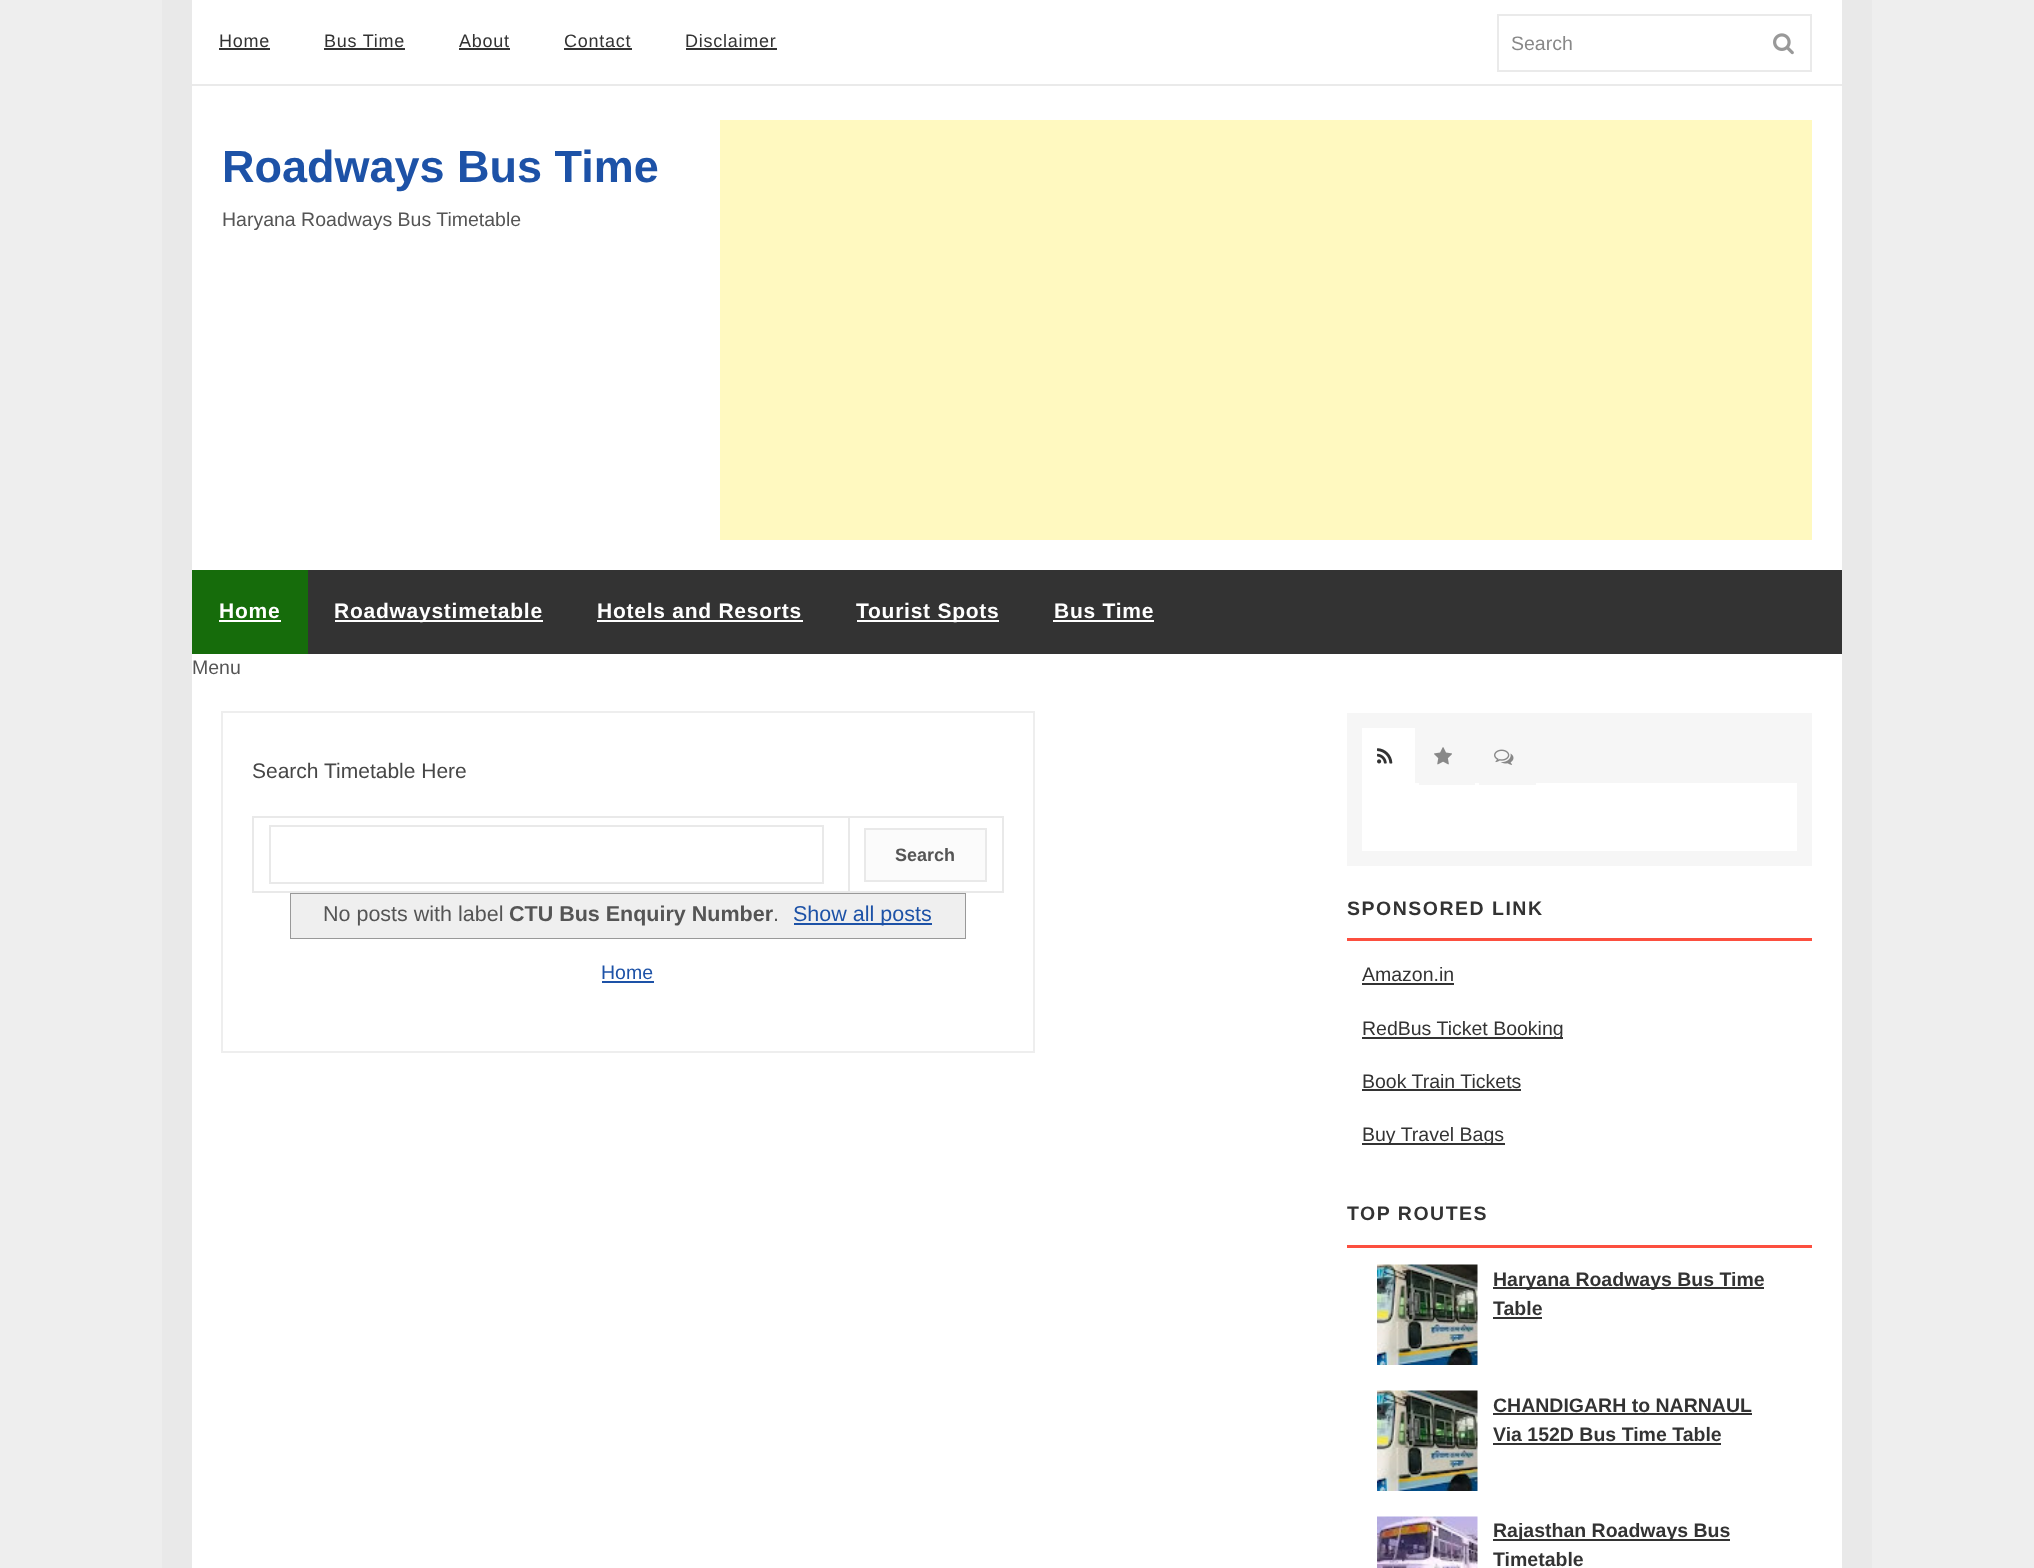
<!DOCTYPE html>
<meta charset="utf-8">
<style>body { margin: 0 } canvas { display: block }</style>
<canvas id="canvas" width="2034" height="1568"></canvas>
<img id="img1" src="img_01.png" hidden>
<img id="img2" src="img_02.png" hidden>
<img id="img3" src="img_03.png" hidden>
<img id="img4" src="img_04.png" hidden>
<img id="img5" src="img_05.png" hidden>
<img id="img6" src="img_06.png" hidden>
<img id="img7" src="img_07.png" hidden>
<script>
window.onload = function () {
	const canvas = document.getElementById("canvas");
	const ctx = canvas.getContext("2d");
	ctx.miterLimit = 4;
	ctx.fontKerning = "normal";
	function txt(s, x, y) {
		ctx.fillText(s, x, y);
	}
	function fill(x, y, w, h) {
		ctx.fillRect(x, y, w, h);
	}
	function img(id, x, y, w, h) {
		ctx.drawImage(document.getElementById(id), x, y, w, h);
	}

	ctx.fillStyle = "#EEEEEE";
	fill(0, 0, 2034, 1568);
	ctx.strokeStyle = "#E9E9E9";
	ctx.lineWidth = 30;
	ctx.strokeRect(177, -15, 1680, 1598);
	ctx.fillStyle = "#FFFFFF";
	fill(192, 0, 1650, 1568);
	ctx.fillStyle = "#EAEAEA";
	fill(192, 84, 1650, 2);
	ctx.fillStyle = "#333333";
	fill(219, 48, 51, 2);
	fill(324, 48, 81, 2);
	fill(459, 48, 51, 2);
	fill(564, 48, 68, 2);
	fill(686, 48, 91, 2);
	ctx.strokeStyle = "#EAEAEA";
	ctx.lineWidth = 2;
	ctx.strokeRect(1498, 15, 313, 56);
	img("img1", 1773, 33, 21, 22);
	ctx.fillStyle = "#FFF9C0";
	fill(720, 120, 1092, 420);
	ctx.fillStyle = "#333333";
	fill(308, 570, 1534, 84);
	ctx.fillStyle = "#166C0B";
	fill(192, 570, 116, 84);
	ctx.fillStyle = "#FFFFFF";
	fill(219, 620, 62, 2);
	fill(335, 620, 208, 2);
	fill(597, 620, 206, 2);
	fill(857, 620, 142, 2);
	fill(1053, 620, 101, 2);
	ctx.strokeStyle = "#EEEEEE";
	ctx.strokeRect(222, 712, 812, 340);
	ctx.fillStyle = "#E9E9E9";
	fill(848, 816, 156, 2);
	fill(1002, 816, 2, 77);
	fill(848, 891, 156, 2);
	fill(848, 816, 2, 77);
	fill(252, 816, 597, 2);
	fill(252, 891, 597, 2);
	fill(252, 816, 2, 77);
	ctx.strokeStyle = "#E9E9E9";
	ctx.strokeRect(270, 826, 553, 57);
	ctx.fillStyle = "#FBFBFB";
	ctx.beginPath();
	ctx.rect(865, 829, 121, 52);
	ctx.fill();
	ctx.stroke();
	ctx.strokeStyle = "#999999";
	ctx.strokeRect(291, 894, 674, 44);
	ctx.fillStyle = "#EFEFEF";
	fill(291, 894, 674, 44);
	ctx.fillStyle = "#1D52A7";
	fill(794, 923, 138, 2);
	fill(602, 981, 52, 2);
	ctx.fillStyle = "#F6F6F6";
	fill(1347, 713, 465, 153);
	ctx.fillStyle = "#FFFFFF";
	fill(1362, 728, 53, 55);
	img("img2", 1377, 748, 16, 16);
	fill(1362, 783, 435, 68);
	ctx.fillStyle = "#F6F6F6";
	fill(1419, 783, 56, 2);
	img("img3", 1434, 747, 18, 18);
	fill(1479, 783, 57, 2);
	img("img4", 1494, 749, 20, 16);
	ctx.fillStyle = "#FC4F3F";
	fill(1347, 938, 465, 3);
	ctx.fillStyle = "#333333";
	fill(1362, 983, 92, 2);
	fill(1362, 1037, 201, 2);
	fill(1362, 1089, 159, 2);
	fill(1362, 1143, 143, 2);
	ctx.fillStyle = "#FC4F3F";
	fill(1347, 1245, 465, 3);
	img("img5", 1377, 1264, 101, 101);
	ctx.fillStyle = "#333333";
	fill(1493, 1287, 271, 2);
	fill(1493, 1317, 49, 2);
	img("img6", 1377, 1390, 101, 101);
	fill(1493, 1413, 259, 2);
	fill(1493, 1443, 228, 2);
	img("img7", 1377, 1516, 101, 52);
	fill(1493, 1539, 237, 2);
	ctx.letterSpacing = "0.75px";
	ctx.font = "18px Liberation Sans";
	txt("Home", 219, 47);
	txt("Bus Time", 324, 47);
	txt("About", 459, 47);
	txt("Contact", 564, 47);
	txt("Disclaimer", 685, 47);
	ctx.letterSpacing = "0px";
	ctx.font = "19.5px Liberation Sans";
	ctx.fillStyle = "#888888";
	txt("Search", 1511, 50);
	ctx.font = "bold 45px Liberation Sans";
	ctx.fillStyle = "#1D52A7";
	txt("Roadways Bus Time", 222, 182);
	ctx.font = "19.5px Liberation Sans";
	ctx.fillStyle = "#555555";
	txt("Haryana Roadways Bus Timetable", 222, 226);
	ctx.letterSpacing = "0.75px";
	ctx.font = "bold 21px Liberation Sans";
	ctx.fillStyle = "#FFFFFF";
	txt("Home", 219, 618);
	txt("Roadwaystimetable", 334, 618);
	txt("Hotels and Resorts", 597, 618);
	txt("Tourist Spots", 856, 618);
	txt("Bus Time", 1054, 618);
	ctx.letterSpacing = "0px";
	ctx.font = "19.5px Liberation Sans";
	ctx.fillStyle = "#555555";
	txt("Menu", 192, 674);
	ctx.font = "21px Liberation Sans";
	ctx.fillStyle = "#474747";
	txt("Search Timetable Here", 252, 778);
	ctx.font = "bold 18px Liberation Sans";
	ctx.fillStyle = "#555555";
	txt("Search", 895, 861);
	ctx.font = "21.5px Liberation Sans";
	txt("No posts with label", 323, 921);
	ctx.font = "bold 21.5px Liberation Sans";
	txt("CTU Bus Enquiry Number", 509, 921);
	ctx.font = "21.5px Liberation Sans";
	txt(".", 773, 921);
	ctx.fillStyle = "#1D52A7";
	txt("Show all posts", 793, 921);
	ctx.font = "19.5px Liberation Sans";
	txt("Home", 601, 979);
	ctx.letterSpacing = "1.5px";
	ctx.font = "bold 19.5px Liberation Sans";
	ctx.fillStyle = "#333333";
	txt("SPONSORED LINK", 1347, 915);
	ctx.letterSpacing = "0px";
	ctx.font = "19.5px Liberation Sans";
	txt("Amazon.in", 1362, 981);
	txt("RedBus Ticket Booking", 1362, 1035);
	txt("Book Train Tickets", 1362, 1088);
	txt("Buy Travel Bags", 1362, 1141);
	ctx.letterSpacing = "1.5px";
	ctx.font = "bold 19.5px Liberation Sans";
	txt("TOP ROUTES", 1347, 1220);
	ctx.letterSpacing = "0px";
	txt("Haryana Roadways Bus Time", 1493, 1286);
	txt("Table", 1493, 1315);
	txt("CHANDIGARH to NARNAUL", 1493, 1412);
	txt("Via 152D Bus Time Table", 1493, 1441);
	txt("Rajasthan Roadways Bus", 1493, 1537);
	txt("Timetable", 1493, 1566);
};
</script>
